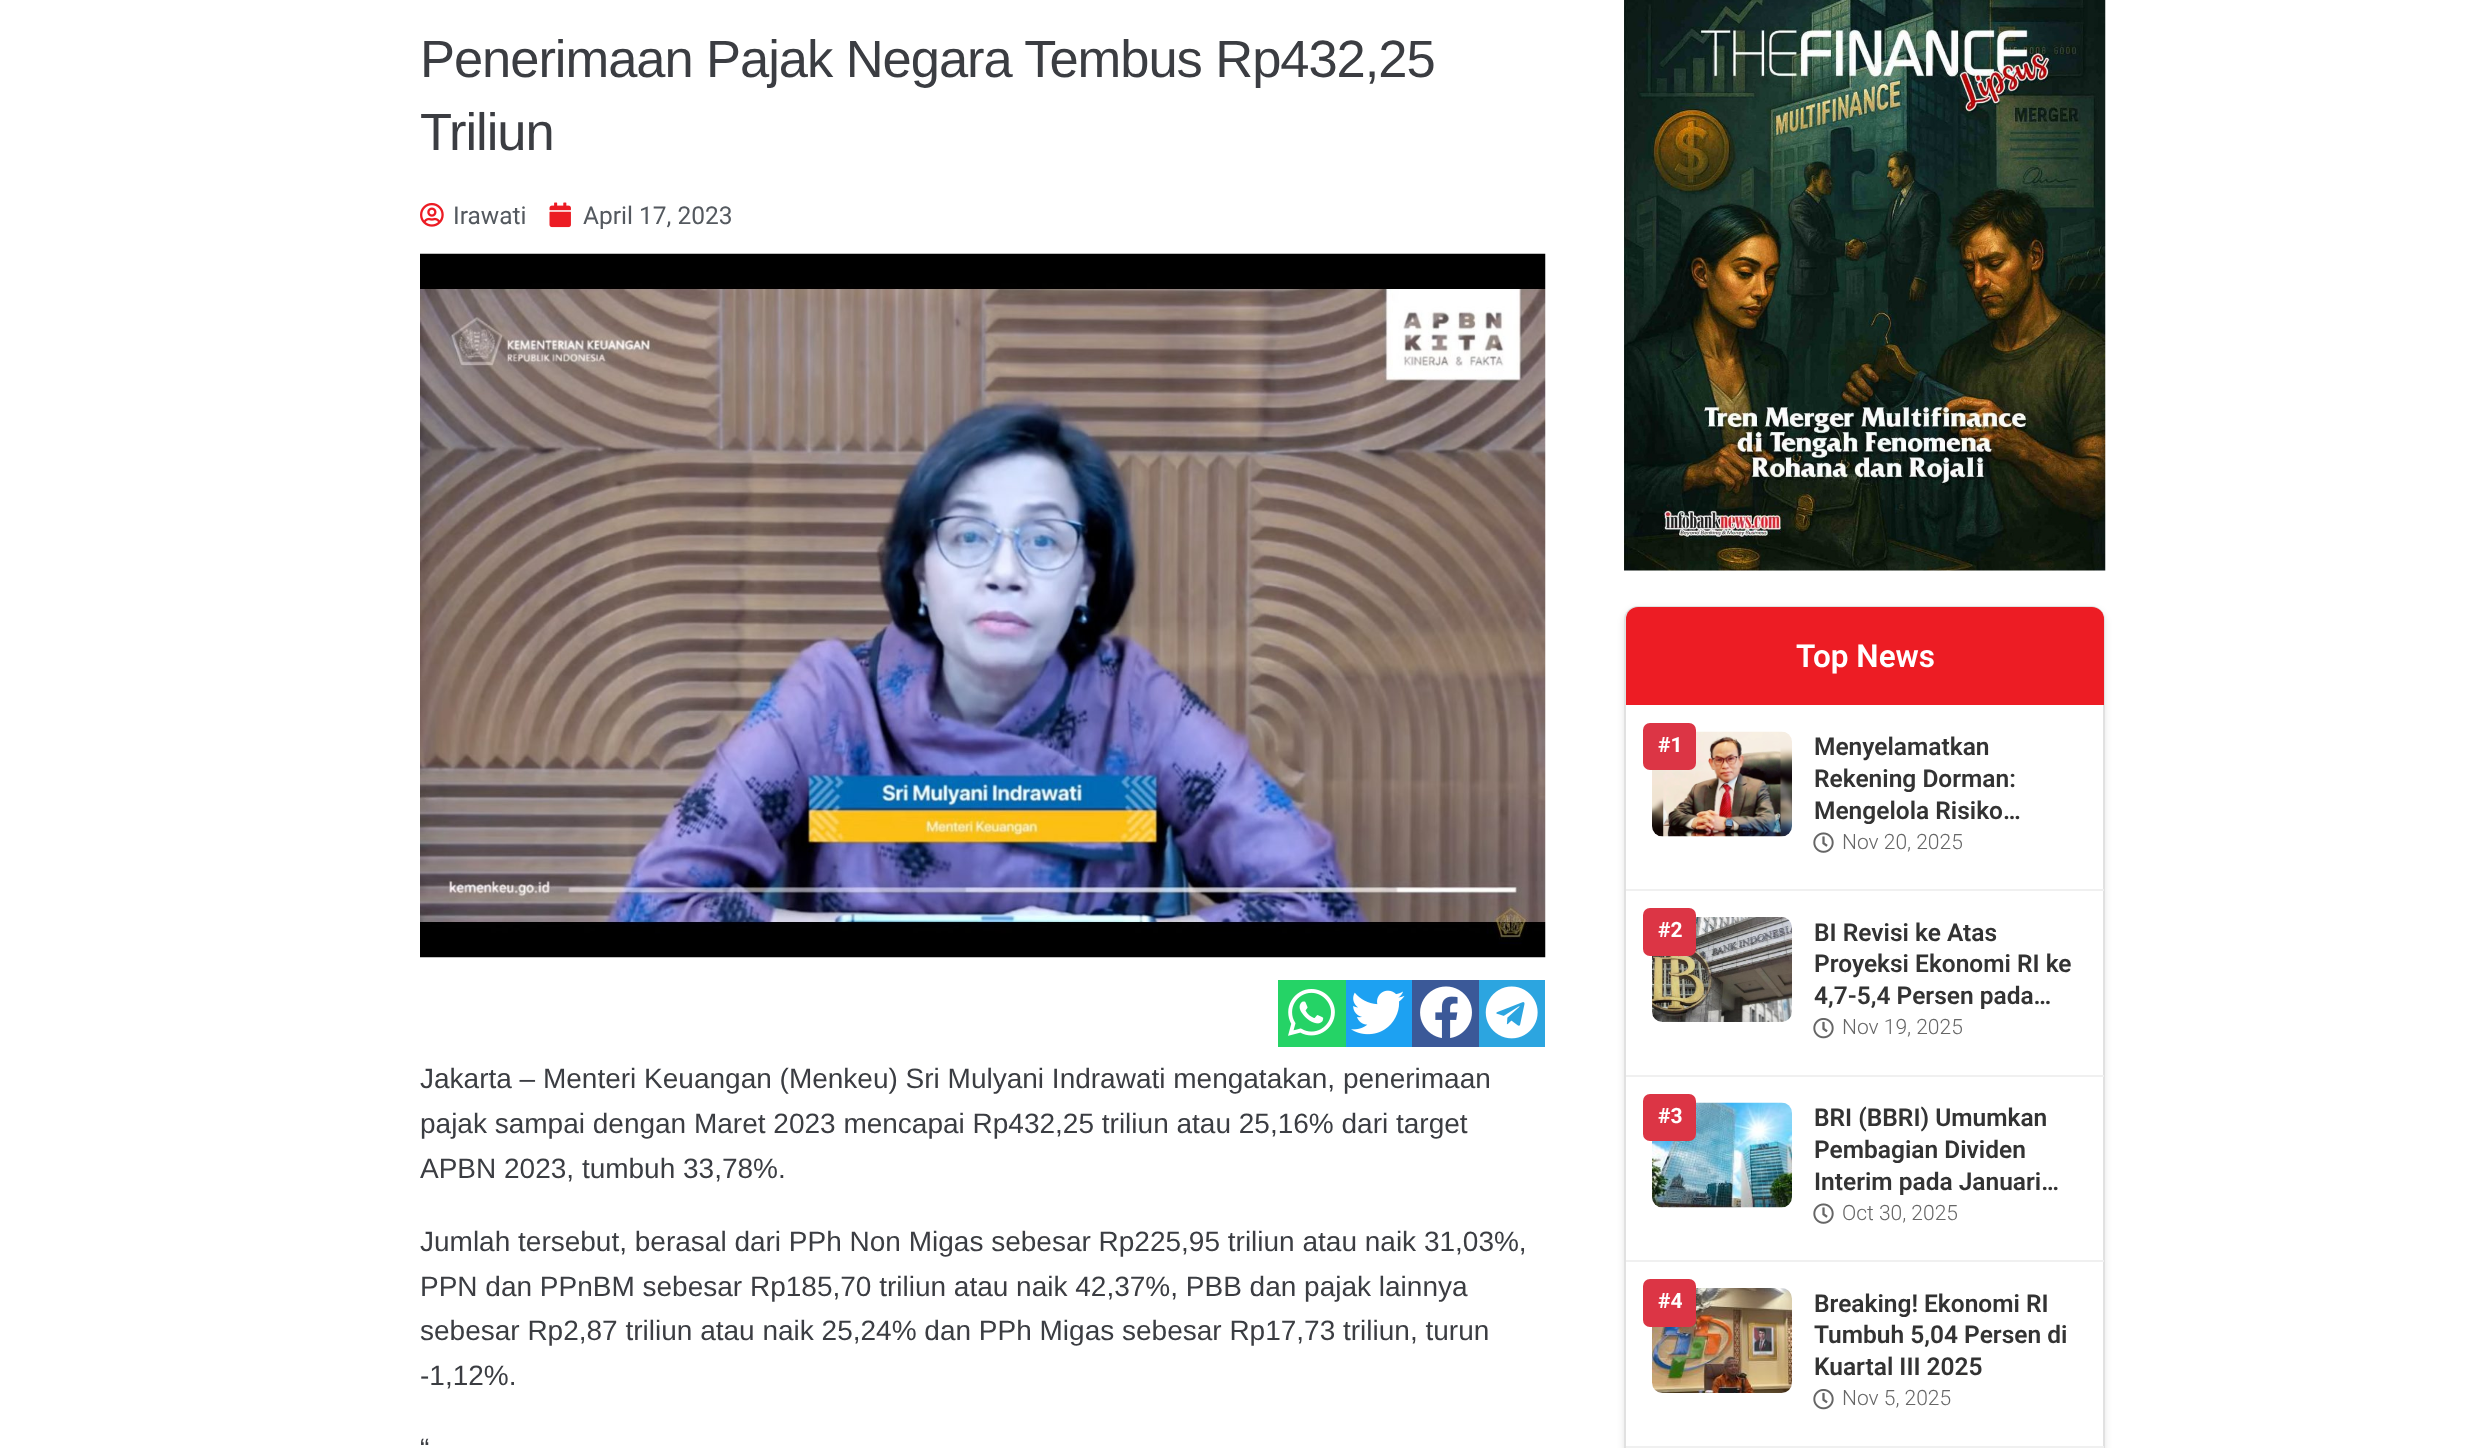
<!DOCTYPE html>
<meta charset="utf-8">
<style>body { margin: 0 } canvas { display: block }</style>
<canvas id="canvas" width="2485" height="1448"></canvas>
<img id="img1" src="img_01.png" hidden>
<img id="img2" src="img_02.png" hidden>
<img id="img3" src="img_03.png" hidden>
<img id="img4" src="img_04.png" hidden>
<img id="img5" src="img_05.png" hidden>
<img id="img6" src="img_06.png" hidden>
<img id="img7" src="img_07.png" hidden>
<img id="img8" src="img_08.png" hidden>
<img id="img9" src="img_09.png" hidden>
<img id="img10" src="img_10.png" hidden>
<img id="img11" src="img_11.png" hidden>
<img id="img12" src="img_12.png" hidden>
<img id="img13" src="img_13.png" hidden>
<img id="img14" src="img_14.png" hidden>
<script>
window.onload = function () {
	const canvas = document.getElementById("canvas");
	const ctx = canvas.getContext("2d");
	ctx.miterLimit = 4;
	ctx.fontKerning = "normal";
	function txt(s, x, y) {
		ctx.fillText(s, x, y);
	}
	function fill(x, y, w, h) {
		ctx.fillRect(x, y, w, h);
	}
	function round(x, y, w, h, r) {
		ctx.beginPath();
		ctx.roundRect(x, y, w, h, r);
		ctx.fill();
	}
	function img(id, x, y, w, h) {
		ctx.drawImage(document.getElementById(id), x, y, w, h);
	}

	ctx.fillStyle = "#FFFFFF";
	fill(0, 0, 2485, 1448);
	img("img1", 420, 202, 24, 25);
	img("img2", 549, 202, 22, 26);
	img("img3", 420, 253, 1126, 705);
	ctx.fillStyle = "#25D366";
	fill(1278, 980, 68, 67);
	img("img4", 1288, 989, 47, 47);
	ctx.fillStyle = "#1DA1F2";
	fill(1346, 980, 66, 67);
	img("img5", 1351, 990, 54, 45);
	ctx.fillStyle = "#3B5998";
	fill(1412, 980, 67, 67);
	img("img6", 1420, 986, 52, 52);
	ctx.fillStyle = "#2CA5E0";
	fill(1479, 980, 66, 67);
	img("img7", 1485, 986, 53, 53);
	img("img8", 1624, 0, 482, 571);
	ctx.save();
	ctx.beginPath();
	ctx.moveTo(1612, 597);
	ctx.lineTo(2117, 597);
	ctx.lineTo(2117, 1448);
	ctx.lineTo(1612, 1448);
	ctx.closePath();
	ctx.moveTo(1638, 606);
	ctx.lineTo(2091, 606);
	ctx.bezierCurveTo(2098.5, 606, 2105, 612.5, 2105, 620);
	ctx.lineTo(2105, 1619);
	ctx.bezierCurveTo(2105, 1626.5, 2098.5, 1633, 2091, 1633);
	ctx.lineTo(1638, 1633);
	ctx.bezierCurveTo(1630.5, 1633, 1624, 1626.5, 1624, 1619);
	ctx.lineTo(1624, 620);
	ctx.bezierCurveTo(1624, 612.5, 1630.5, 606, 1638, 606);
	ctx.closePath();
	ctx.clip("evenodd");
	ctx.fillStyle = "rgba(0, 0, 0, 0.1)";
	ctx.filter = "blur(3.5px)";
	ctx.beginPath();
	ctx.roundRect(1624, 609, 481, 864, 14);
	ctx.fill();
	ctx.filter = "none";
	ctx.restore();
	ctx.beginPath();
	ctx.roundRect(1625, 607, 479, 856, 13);
	ctx.strokeStyle = "#E1E1E1";
	ctx.lineWidth = 2;
	ctx.stroke();
	ctx.fillStyle = "#ED1C24";
	ctx.beginPath();
	ctx.roundRect(1626, 607, 478, 98, [12, 12, 0, 0]);
	ctx.fill();
	ctx.fillStyle = "#F0F0F0";
	fill(1626, 889, 478, 2);
	img("img9", 1652, 731, 140, 106);
	img("img10", 1813, 832, 21, 21);
	ctx.fillStyle = "#DC3545";
	round(1643, 723, 53, 47, 7);
	ctx.fillStyle = "#F0F0F0";
	fill(1626, 1075, 478, 2);
	img("img11", 1652, 917, 140, 105);
	ctx.fillStyle = "#DC3545";
	round(1643, 908, 53, 48, 7);
	img("img12", 1813, 1018, 21, 21);
	ctx.fillStyle = "#F0F0F0";
	fill(1626, 1260, 478, 2);
	img("img13", 1652, 1102, 140, 106);
	img("img10", 1813, 1203, 21, 21);
	ctx.fillStyle = "#DC3545";
	round(1643, 1094, 53, 47, 7);
	ctx.fillStyle = "#F0F0F0";
	fill(1626, 1446, 478, 2);
	img("img14", 1652, 1288, 140, 105);
	ctx.fillStyle = "#DC3545";
	round(1643, 1279, 53, 48, 7);
	img("img12", 1813, 1389, 21, 21);
	ctx.letterSpacing = "-1.05px";
	ctx.font = "52.5px Liberation Sans";
	ctx.fillStyle = "#3B3D42";
	txt("Penerimaan Pajak Negara Tembus Rp432,25", 420, 77);
	txt("Triliun", 420, 150);
	ctx.letterSpacing = "0px";
	ctx.font = "24.5px Roboto";
	ctx.fillStyle = "#54595F";
	txt("Irawati", 453, 224);
	txt("April 17, 2023", 583, 224);
	ctx.font = "28px Liberation Sans";
	ctx.fillStyle = "#3B3D42";
	txt("Jakarta – Menteri Keuangan (Menkeu) Sri Mulyani Indrawati mengatakan, penerimaan", 420, 1088);
	txt("pajak sampai dengan Maret 2023 mencapai Rp432,25 triliun atau 25,16% dari target", 420, 1133);
	txt("APBN 2023, tumbuh 33,78%.", 420, 1178);
	txt("Jumlah tersebut, berasal dari PPh Non Migas sebesar Rp225,95 triliun atau naik 31,03%,", 420, 1251);
	txt("PPN dan PPnBM sebesar Rp185,70 triliun atau naik 42,37%, PBB dan pajak lainnya", 420, 1296);
	txt("sebesar Rp2,87 triliun atau naik 25,24% dan PPh Migas sebesar Rp17,73 triliun, turun", 420, 1340);
	txt("-1,12%.", 420, 1385);
	txt("“", 420, 1458);
	ctx.font = "600 31.5px Roboto";
	ctx.fillStyle = "#FFFFFF";
	txt("Top News", 1796, 667);
	ctx.font = "600 24.5px Roboto";
	ctx.fillStyle = "#333333";
	txt("Menyelamatkan", 1814, 755);
	txt("Rekening Dorman:", 1814, 787);
	txt("Mengelola Risiko…", 1814, 819);
	ctx.font = "300 21px Roboto";
	ctx.fillStyle = "#666666";
	txt("Nov 20, 2025", 1842, 849);
	ctx.font = "bold 21px Roboto";
	ctx.fillStyle = "#FFFFFF";
	txt("#1", 1658, 752);
	txt("#2", 1658, 937);
	ctx.font = "600 24.5px Roboto";
	ctx.fillStyle = "#333333";
	txt("BI Revisi ke Atas", 1814, 941);
	txt("Proyeksi Ekonomi RI ke", 1814, 972);
	txt("4,7-5,4 Persen pada…", 1814, 1004);
	ctx.font = "300 21px Roboto";
	ctx.fillStyle = "#666666";
	txt("Nov 19, 2025", 1842, 1034);
	ctx.font = "600 24.5px Roboto";
	ctx.fillStyle = "#333333";
	txt("BRI (BBRI) Umumkan", 1814, 1126);
	txt("Pembagian Dividen", 1814, 1158);
	txt("Interim pada Januari…", 1814, 1190);
	ctx.font = "300 21px Roboto";
	ctx.fillStyle = "#666666";
	txt("Oct 30, 2025", 1842, 1220);
	ctx.font = "bold 21px Roboto";
	ctx.fillStyle = "#FFFFFF";
	txt("#3", 1658, 1123);
	txt("#4", 1658, 1308);
	ctx.font = "600 24.5px Roboto";
	ctx.fillStyle = "#333333";
	txt("Breaking! Ekonomi RI", 1814, 1312);
	txt("Tumbuh 5,04 Persen di", 1814, 1343);
	txt("Kuartal III 2025", 1814, 1375);
	ctx.font = "300 21px Roboto";
	ctx.fillStyle = "#666666";
	txt("Nov 5, 2025", 1842, 1405);
};
</script>
